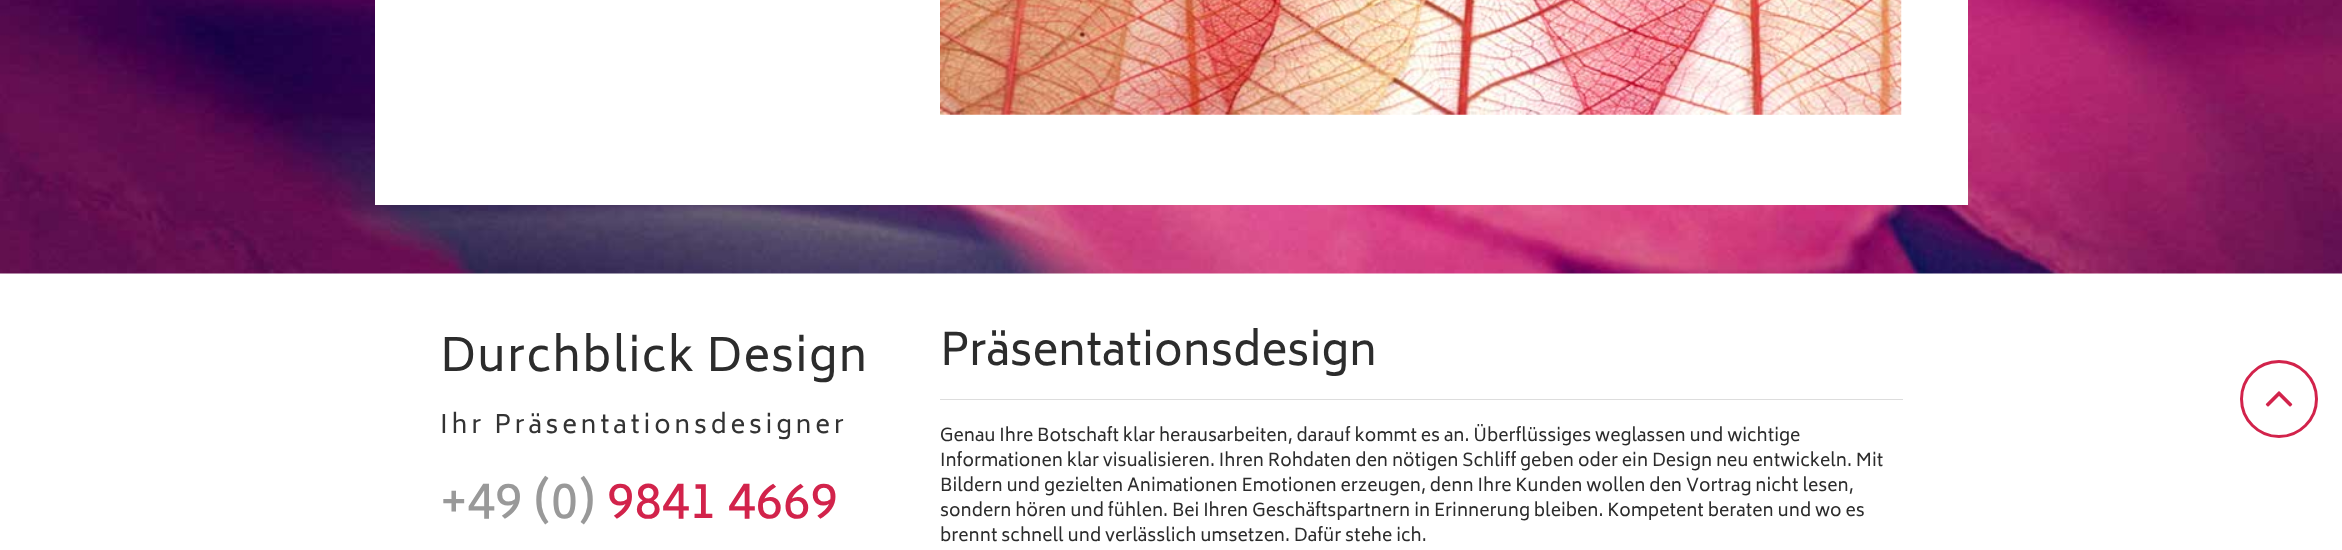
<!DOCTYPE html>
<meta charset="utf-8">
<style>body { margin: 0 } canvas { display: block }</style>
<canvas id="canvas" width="2342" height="550"></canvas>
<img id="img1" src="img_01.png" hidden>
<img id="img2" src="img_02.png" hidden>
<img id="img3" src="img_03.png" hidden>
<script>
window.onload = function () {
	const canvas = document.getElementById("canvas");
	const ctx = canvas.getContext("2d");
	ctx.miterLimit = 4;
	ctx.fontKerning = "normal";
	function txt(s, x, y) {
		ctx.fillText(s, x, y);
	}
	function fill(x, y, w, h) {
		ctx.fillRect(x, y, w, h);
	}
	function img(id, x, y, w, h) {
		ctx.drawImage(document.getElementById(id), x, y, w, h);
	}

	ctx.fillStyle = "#FFFFFF";
	fill(0, 0, 2342, 550);
	img("img1", 0, 0, 2342, 274);
	fill(375, 0, 1593, 205);
	img("img2", 940, 0, 962, 115);
	ctx.fillStyle = "#DDDDDD";
	fill(940, 399, 963, 1);
	ctx.beginPath();
	ctx.arc(2279, 399, 37.5, 0, Math.PI * 2);
	ctx.strokeStyle = "#D2234B";
	ctx.lineWidth = 3;
	ctx.stroke();
	img("img3", 2265, 391, 28, 16);
	ctx.letterSpacing = "1.25px";
	ctx.font = "45px Biryani";
	ctx.fillStyle = "#2C2C2C";
	txt("Durchblick Design", 440, 371);
	ctx.letterSpacing = "3.75px";
	ctx.font = "25px Biryani";
	ctx.fillStyle = "#333333";
	txt("Ihr Präsentationsdesigner", 440, 433);
	ctx.letterSpacing = "0px";
	ctx.font = "50px Biryani";
	ctx.fillStyle = "#999999";
	txt("+49 (0)", 440, 518);
	ctx.fillStyle = "#D2234B";
	txt("9841 4669", 607, 518);
	ctx.font = "43.75px Biryani";
	ctx.fillStyle = "#2C2C2C";
	txt("Präsentationsdesign", 940, 365);
	ctx.font = "17.5px Biryani";
	txt("Genau Ihre Botschaft klar herausarbeiten, darauf kommt es an. Überflüssiges weglassen und wichtige", 940, 441);
	txt("Informationen klar visualisieren. Ihren Rohdaten den nötigen Schliff geben oder ein Design neu entwickeln. Mit", 940, 466);
	txt("Bildern und gezielten Animationen Emotionen erzeugen, denn Ihre Kunden wollen den Vortrag nicht lesen,", 940, 491);
	txt("sondern hören und fühlen. Bei Ihren Geschäftspartnern in Erinnerung bleiben. Kompetent beraten und wo es", 940, 516);
	txt("brennt schnell und verlässlich umsetzen. Dafür stehe ich.", 940, 541);
};
</script>
